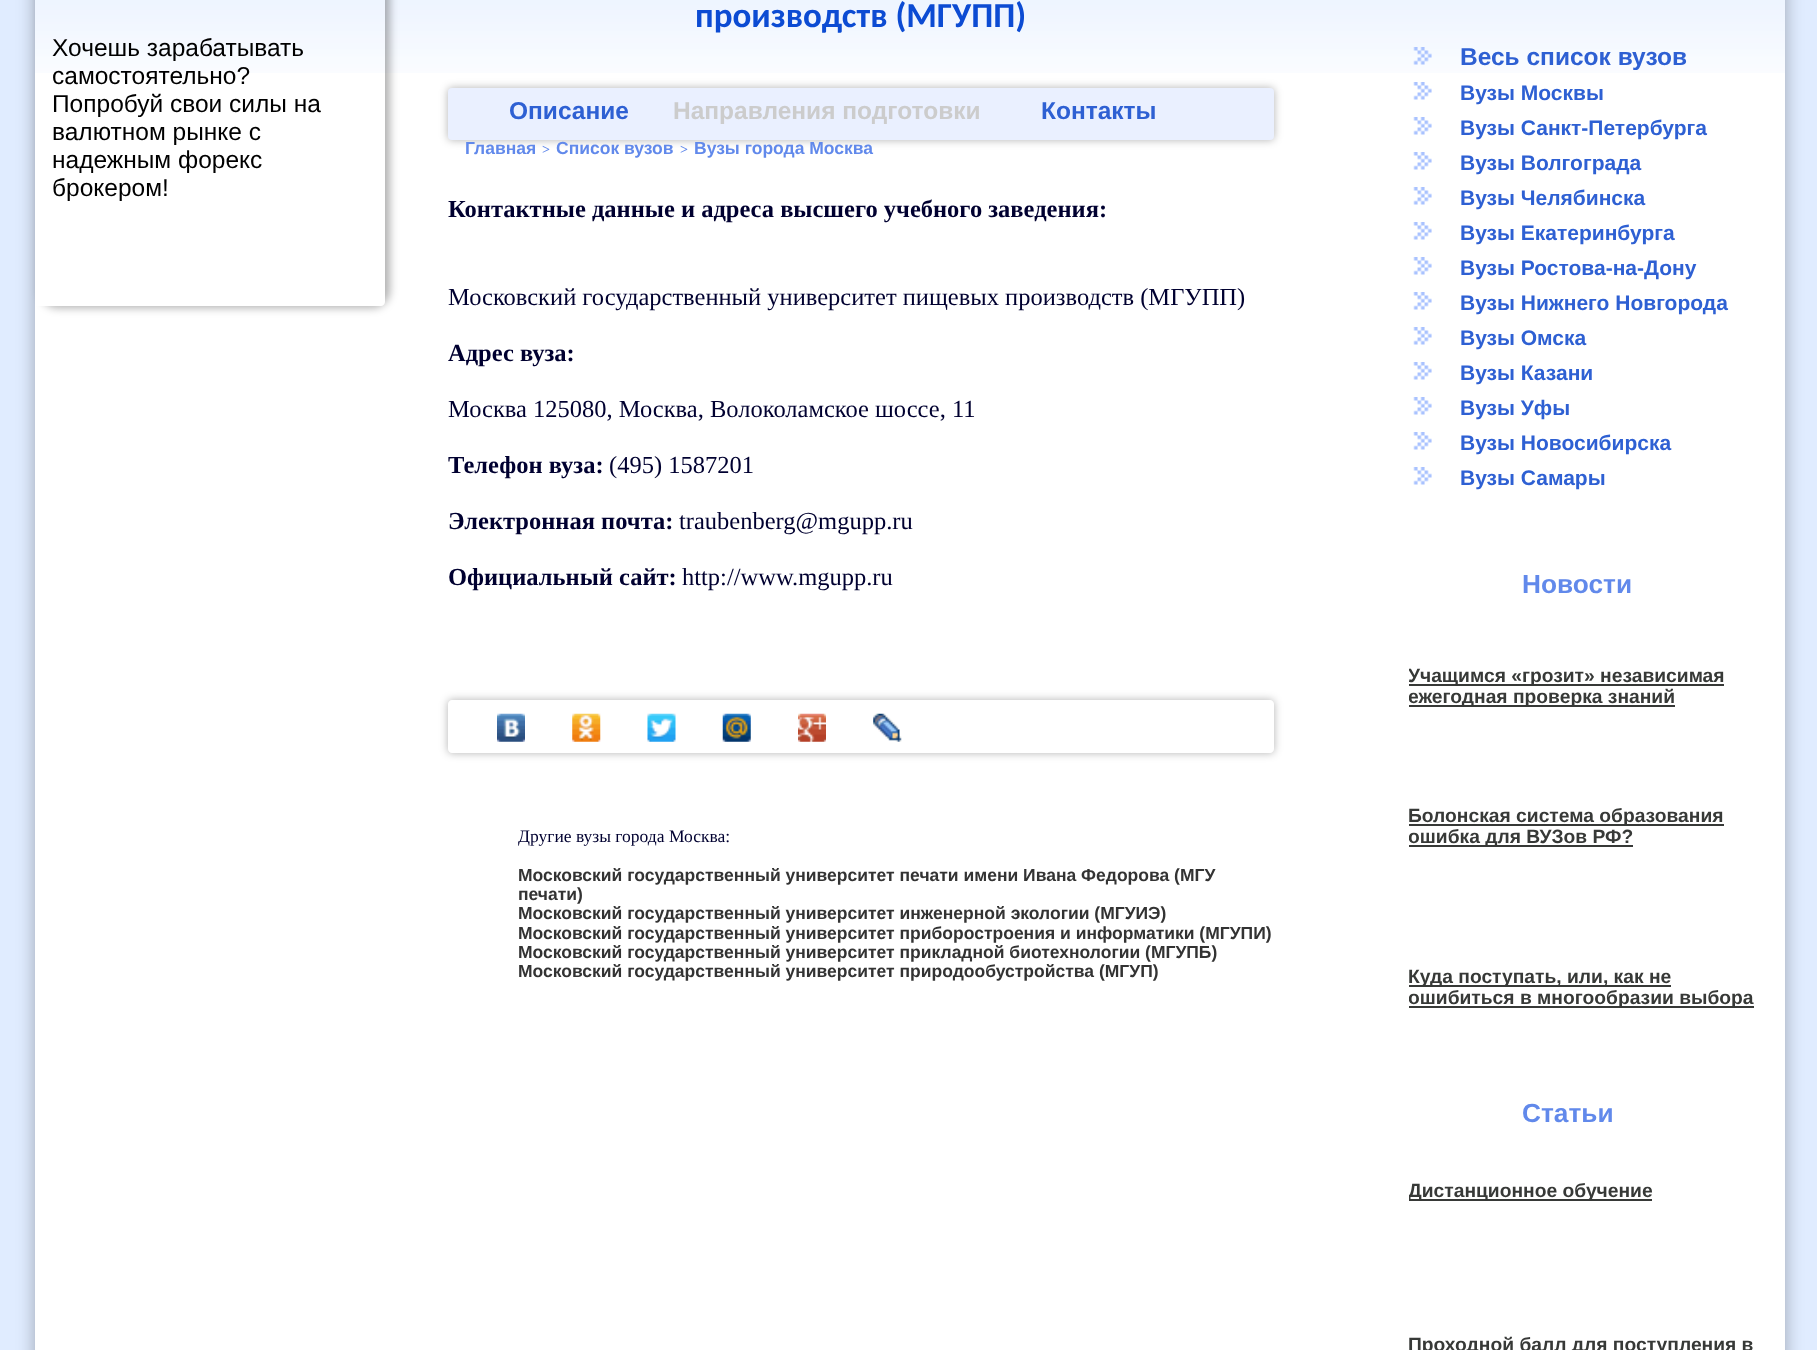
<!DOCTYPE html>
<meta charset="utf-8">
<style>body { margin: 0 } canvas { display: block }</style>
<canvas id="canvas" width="1817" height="1350"></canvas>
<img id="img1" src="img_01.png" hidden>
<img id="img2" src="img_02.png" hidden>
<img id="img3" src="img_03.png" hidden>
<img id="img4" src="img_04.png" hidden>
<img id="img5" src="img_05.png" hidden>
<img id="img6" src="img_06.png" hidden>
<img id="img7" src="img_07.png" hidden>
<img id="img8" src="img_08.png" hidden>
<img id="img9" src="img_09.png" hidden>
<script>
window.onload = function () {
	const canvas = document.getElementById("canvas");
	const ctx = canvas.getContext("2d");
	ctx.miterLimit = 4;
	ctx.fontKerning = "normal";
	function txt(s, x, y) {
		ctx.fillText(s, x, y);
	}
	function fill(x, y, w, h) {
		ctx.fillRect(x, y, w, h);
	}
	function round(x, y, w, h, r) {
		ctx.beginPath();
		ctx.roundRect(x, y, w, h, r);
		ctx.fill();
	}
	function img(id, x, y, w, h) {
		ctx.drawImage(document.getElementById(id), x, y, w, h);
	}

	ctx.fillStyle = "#E0ECFF";
	fill(0, 0, 1817, 1350);
	ctx.fillStyle = "rgba(0, 0, 0, 0.3)";
	ctx.filter = "blur(9px)";
	ctx.beginPath();
	ctx.rect(35, -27, 1750, 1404);
	ctx.fill();
	ctx.filter = "none";
	ctx.fillStyle = "#FFFFFF";
	fill(35, 73, 1750, 1277);
	img("img1", 35, 0, 1750, 73);
	ctx.save();
	ctx.beginPath();
	ctx.moveTo(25, 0);
	ctx.lineTo(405, 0);
	ctx.lineTo(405, 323);
	ctx.lineTo(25, 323);
	ctx.closePath();
	ctx.moveTo(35, -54);
	ctx.lineTo(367, -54);
	ctx.bezierCurveTo(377, -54, 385, -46, 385, -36);
	ctx.lineTo(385, 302);
	ctx.bezierCurveTo(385, 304, 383, 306, 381, 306);
	ctx.lineTo(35, 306);
	ctx.closePath();
	ctx.clip("evenodd");
	ctx.fillStyle = "rgba(0, 0, 0, 0.3)";
	ctx.filter = "blur(4.5px)";
	ctx.beginPath();
	ctx.roundRect(40, -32, 350, 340, 18);
	ctx.fill();
	ctx.filter = "none";
	ctx.restore();
	ctx.fillStyle = "rgba(0, 0, 0, 0.3)";
	ctx.filter = "blur(4.5px)";
	ctx.beginPath();
	ctx.roundRect(448, 88, 826, 52, 4);
	ctx.fill();
	ctx.filter = "none";
	ctx.fillStyle = "#EAF0FF";
	round(448, 88, 826, 52, 4);
	ctx.save();
	ctx.beginPath();
	ctx.moveTo(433, 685);
	ctx.lineTo(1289, 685);
	ctx.lineTo(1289, 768);
	ctx.lineTo(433, 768);
	ctx.closePath();
	ctx.moveTo(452, 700);
	ctx.lineTo(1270, 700);
	ctx.bezierCurveTo(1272, 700, 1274, 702, 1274, 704);
	ctx.lineTo(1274, 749);
	ctx.bezierCurveTo(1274, 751, 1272, 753, 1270, 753);
	ctx.lineTo(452, 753);
	ctx.bezierCurveTo(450, 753, 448, 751, 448, 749);
	ctx.lineTo(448, 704);
	ctx.bezierCurveTo(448, 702, 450, 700, 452, 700);
	ctx.closePath();
	ctx.clip("evenodd");
	ctx.fillStyle = "rgba(0, 0, 0, 0.3)";
	ctx.filter = "blur(4.5px)";
	ctx.beginPath();
	ctx.roundRect(448, 700, 826, 53, 4);
	ctx.fill();
	ctx.filter = "none";
	ctx.restore();
	img("img2", 497, 713, 28, 29);
	img("img3", 572, 713, 29, 29);
	img("img4", 647, 713, 29, 29);
	img("img5", 722, 713, 29, 29);
	img("img6", 798, 713, 28, 29);
	img("img7", 873, 713, 29, 29);
	img("img8", 1413, 47, 19, 18);
	img("img9", 1413, 82, 19, 18);
	img("img9", 1413, 117, 19, 18);
	img("img9", 1413, 152, 19, 18);
	img("img9", 1413, 187, 19, 18);
	img("img9", 1413, 222, 19, 18);
	img("img9", 1413, 257, 19, 18);
	img("img9", 1413, 292, 19, 18);
	img("img9", 1413, 327, 19, 18);
	img("img9", 1413, 362, 19, 18);
	img("img9", 1413, 397, 19, 18);
	img("img9", 1413, 432, 19, 18);
	img("img9", 1413, 467, 19, 18);
	ctx.fillStyle = "#373937";
	fill(1409, 684, 315, 2);
	fill(1409, 705, 266, 2);
	fill(1409, 824, 315, 2);
	fill(1409, 845, 224, 2);
	fill(1409, 985, 262, 2);
	fill(1409, 1006, 345, 2);
	fill(1409, 1199, 243, 2);
	ctx.font = "24.5px Liberation Sans";
	ctx.fillStyle = "#000000";
	txt("Хочешь зарабатывать", 52, 56);
	txt("самостоятельно?", 52, 84);
	txt("Попробуй свои силы на", 52, 112);
	txt("валютном рынке с", 52, 140);
	txt("надежным форекс", 52, 168);
	txt("брокером!", 52, 196);
	ctx.font = "bold 35px Carlito";
	ctx.fillStyle = "#0C4BD3";
	txt("производств (МГУПП)", 695, 27);
	ctx.font = "bold 24.5px Liberation Sans";
	ctx.fillStyle = "#2E60D3";
	txt("Описание", 509, 119);
	ctx.fillStyle = "#CCCCCC";
	txt("Направления подготовки", 673, 119);
	ctx.fillStyle = "#2E60D3";
	txt("Контакты", 1041, 119);
	ctx.font = "bold 17.5px Liberation Sans";
	ctx.fillStyle = "#6189EB";
	txt("Главная", 465, 154);
	ctx.font = "bold 14px Liberation Serif";
	txt(">", 542, 154);
	ctx.font = "bold 17.5px Liberation Sans";
	txt("Список вузов", 556, 154);
	ctx.font = "bold 14px Liberation Serif";
	txt(">", 680, 154);
	ctx.font = "bold 17.5px Liberation Sans";
	txt("Вузы города Москва", 694, 154);
	ctx.font = "bold 24.5px Liberation Serif";
	ctx.fillStyle = "#000030";
	txt("Контактные данные и адреса высшего учебного заведения:", 448, 217);
	ctx.font = "24.5px Liberation Serif";
	txt("Московский государственный университет пищевых производств (МГУПП)", 448, 305);
	ctx.font = "bold 24.5px Liberation Serif";
	txt("Адрес вуза:", 448, 361);
	ctx.font = "24.5px Liberation Serif";
	txt("Москва 125080, Москва, Волоколамское шоссе, 11", 448, 417);
	ctx.font = "bold 24.5px Liberation Serif";
	txt("Телефон вуза:", 448, 473);
	ctx.font = "24.5px Liberation Serif";
	txt("(495) 1587201", 609, 473);
	ctx.font = "bold 24.5px Liberation Serif";
	txt("Электронная почта:", 448, 529);
	ctx.font = "24.5px Liberation Serif";
	txt("traubenberg@mgupp.ru", 679, 529);
	ctx.font = "bold 24.5px Liberation Serif";
	txt("Официальный сайт:", 448, 585);
	ctx.font = "24.5px Liberation Serif";
	txt("http://www.mgupp.ru", 682, 585);
	ctx.font = "17.5px Liberation Serif";
	txt("Другие вузы города Москва:", 518, 842);
	ctx.font = "bold 17.5px Liberation Sans";
	ctx.fillStyle = "#333333";
	txt("Московский государственный университет печати имени Ивана Федорова (МГУ", 518, 881);
	txt("печати)", 518, 900);
	txt("Московский государственный университет инженерной экологии (МГУИЭ)", 518, 919);
	txt("Московский государственный университет приборостроения и информатики (МГУПИ)", 518, 939);
	txt("Московский государственный университет прикладной биотехнологии (МГУПБ)", 518, 958);
	txt("Московский государственный университет природообустройства (МГУП)", 518, 977);
	ctx.font = "bold 24.5px Liberation Sans";
	ctx.fillStyle = "#2E60D3";
	txt("Весь список вузов", 1460, 65);
	ctx.font = "bold 21px Liberation Sans";
	txt("Вузы Москвы", 1460, 100);
	txt("Вузы Санкт-Петербурга", 1460, 135);
	txt("Вузы Волгограда", 1460, 170);
	txt("Вузы Челябинска", 1460, 205);
	txt("Вузы Екатеринбурга", 1460, 240);
	txt("Вузы Ростова-на-Дону", 1460, 275);
	txt("Вузы Нижнего Новгорода", 1460, 310);
	txt("Вузы Омска", 1460, 345);
	txt("Вузы Казани", 1460, 380);
	txt("Вузы Уфы", 1460, 415);
	txt("Вузы Новосибирска", 1460, 450);
	txt("Вузы Самары", 1460, 485);
	ctx.font = "bold 26.25px Liberation Sans";
	ctx.fillStyle = "#6189EB";
	txt("Новости", 1522, 593);
	ctx.save();
	ctx.beginPath();
	ctx.roundRect(1409, 616, 367, 123, 4);
	ctx.clip();
	ctx.font = "bold 19.25px Liberation Sans";
	ctx.fillStyle = "#373937";
	txt("Учащимся «грозит» независимая", 1408, 682);
	txt("ежегодная проверка знаний", 1408, 703);
	ctx.restore();
	ctx.font = "bold 19.25px Liberation Sans";
	ctx.fillStyle = "#373937";
	txt("Болонская система образования", 1408, 822);
	ctx.save();
	ctx.beginPath();
	ctx.roundRect(1409, 756, 367, 123, 4);
	ctx.clip();
	txt("ошибка для ВУЗов РФ?", 1408, 843);
	ctx.restore();
	txt("Куда поступать, или, как не", 1408, 983);
	ctx.save();
	ctx.beginPath();
	ctx.roundRect(1409, 896, 367, 123, 4);
	ctx.clip();
	txt("ошибиться в многообразии выбора", 1408, 1004);
	ctx.restore();
	ctx.font = "bold 26.25px Liberation Sans";
	ctx.fillStyle = "#6189EB";
	txt("Статьи", 1522, 1122);
	ctx.save();
	ctx.beginPath();
	ctx.roundRect(1409, 1145, 367, 122, 4);
	ctx.clip();
	ctx.font = "bold 19.25px Liberation Sans";
	ctx.fillStyle = "#373937";
	txt("Дистанционное обучение", 1408, 1197);
	ctx.restore();
	ctx.font = "bold 19.25px Liberation Sans";
	ctx.fillStyle = "#373937";
	txt("Проходной балл для поступления в", 1408, 1351);
};
</script>
